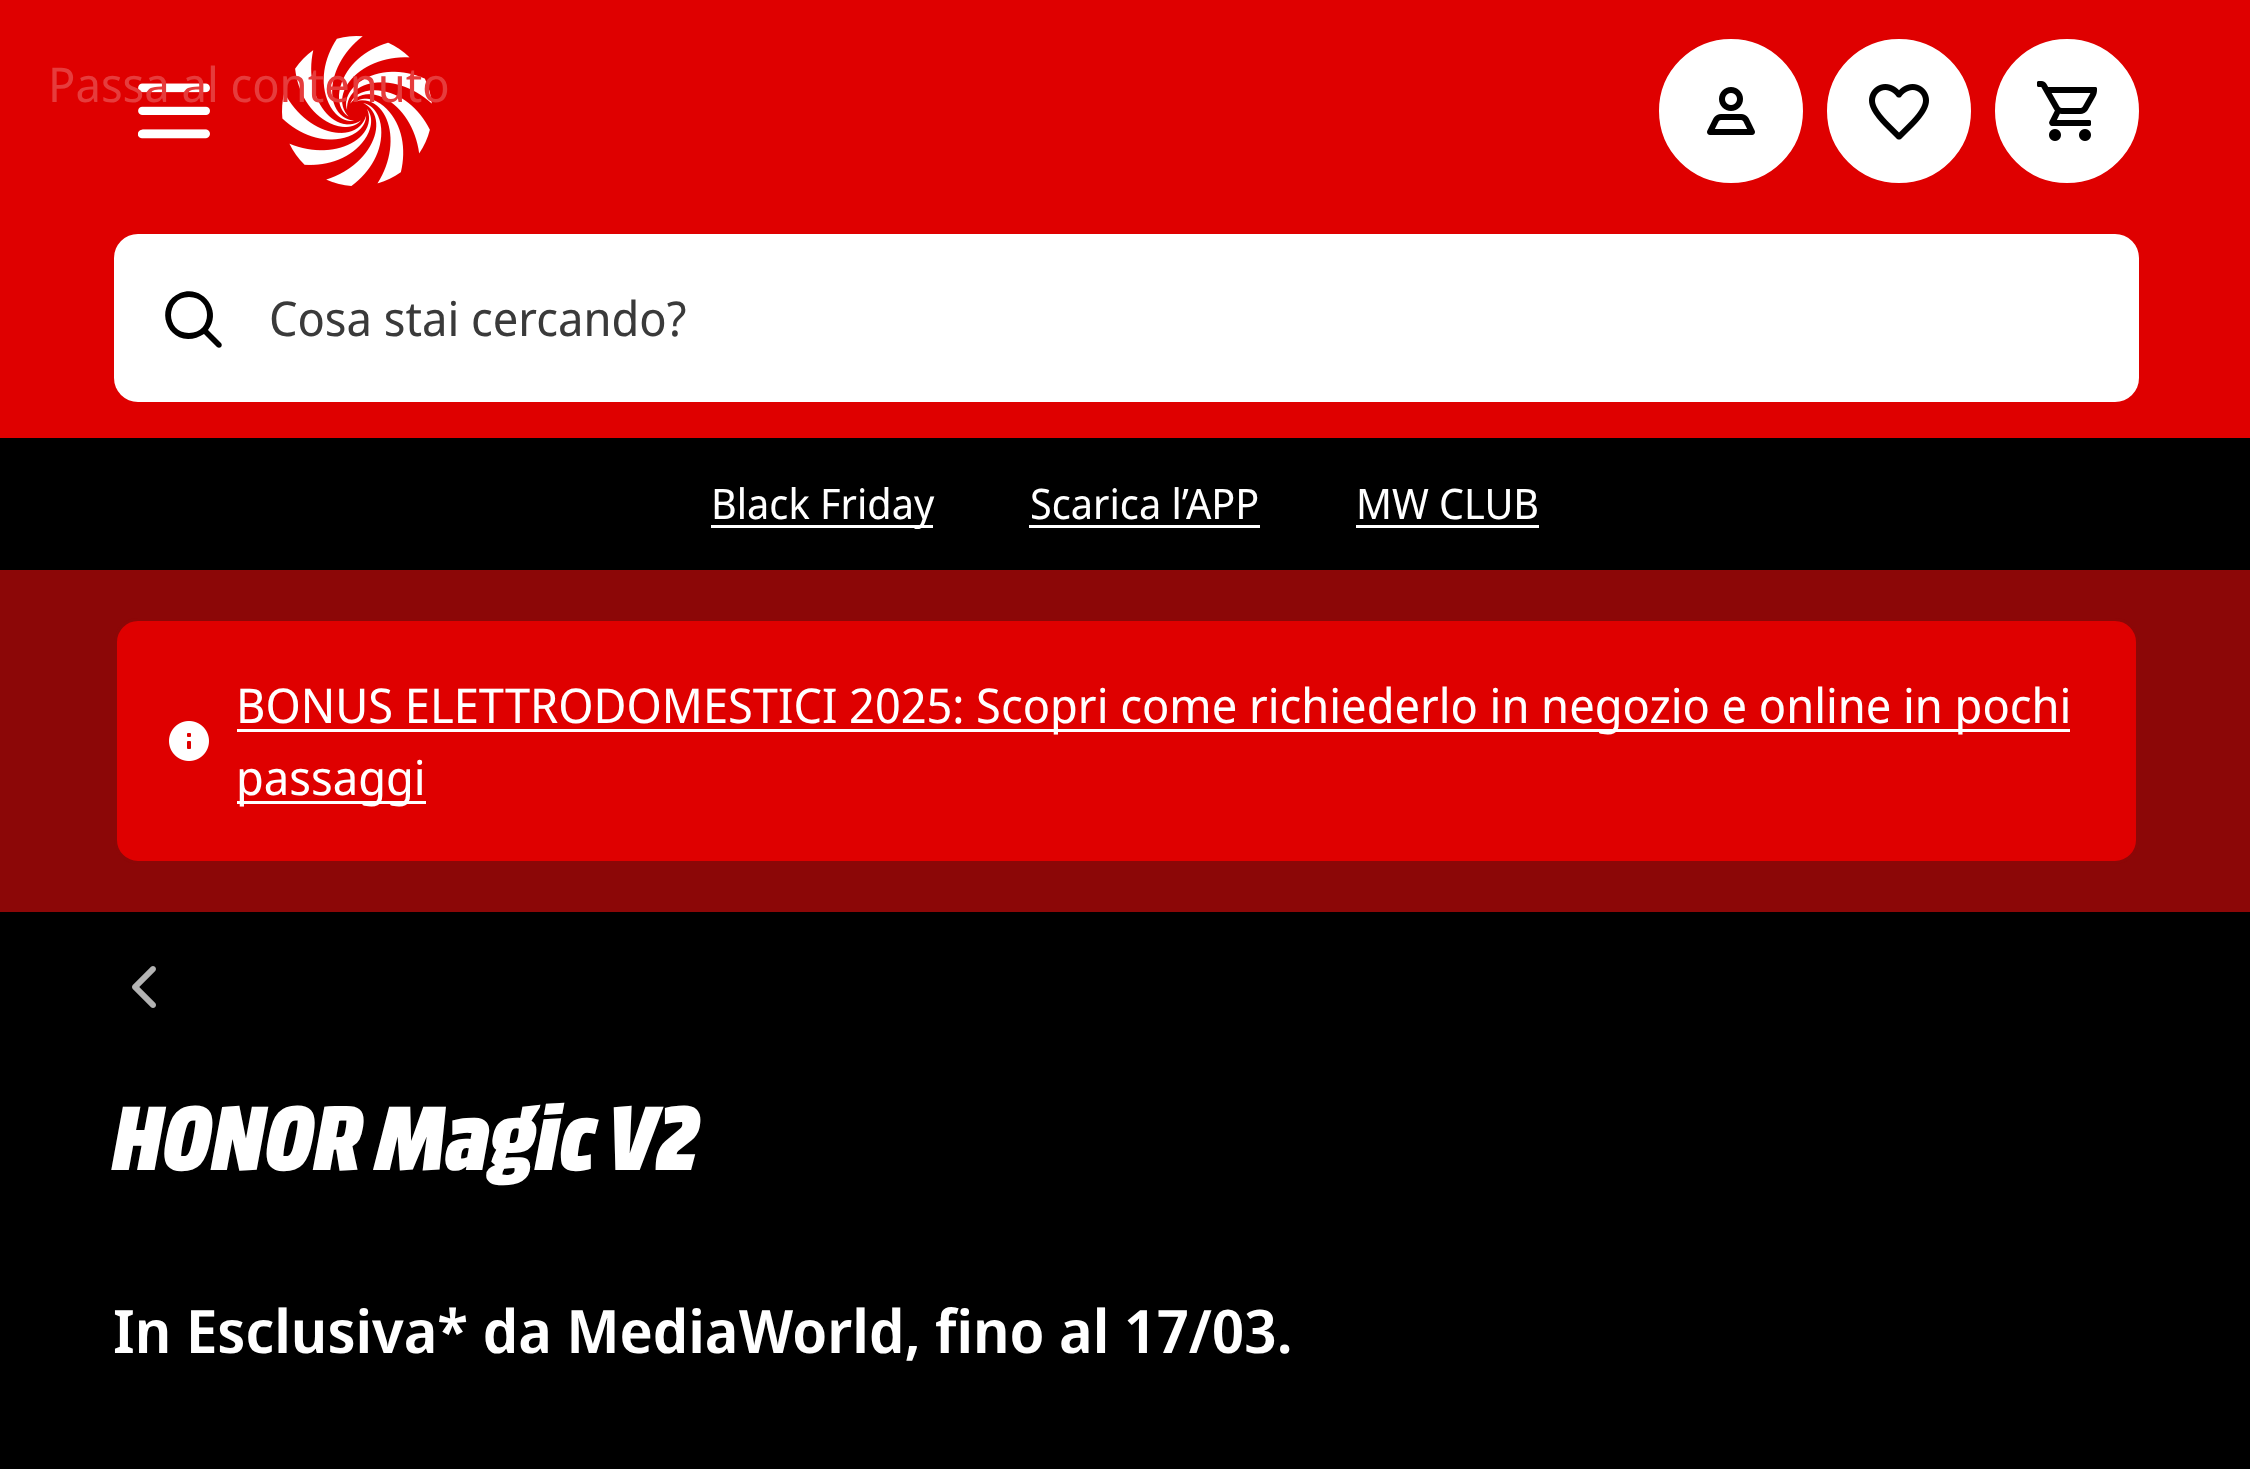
<!DOCTYPE html>
<meta charset="utf-8">
<style>body { margin: 0 } canvas { display: block }</style>
<canvas id="canvas" width="2250" height="1469"></canvas>
<img id="img1" src="img_01.png" hidden>
<img id="img2" src="img_02.png" hidden>
<img id="img3" src="img_03.png" hidden>
<img id="img4" src="img_04.png" hidden>
<img id="img5" src="img_05.png" hidden>
<img id="img6" src="img_06.png" hidden>
<img id="img7" src="img_07.png" hidden>
<script>
window.onload = function () {
	const canvas = document.getElementById("canvas");
	const ctx = canvas.getContext("2d");
	ctx.miterLimit = 4;
	ctx.fontKerning = "normal";
	function txt(s, x, y) {
		ctx.fillText(s, x, y);
	}
	function fill(x, y, w, h) {
		ctx.fillRect(x, y, w, h);
	}
	function round(x, y, w, h, r) {
		ctx.beginPath();
		ctx.roundRect(x, y, w, h, r);
		ctx.fill();
	}
	function img(id, x, y, w, h) {
		ctx.drawImage(document.getElementById(id), x, y, w, h);
	}

	ctx.fillStyle = "#8C0707";
	fill(0, 0, 2250, 1469);
	ctx.fillStyle = "#DF0000";
	fill(0, 0, 2250, 438);
	img("img1", 138, 83, 72, 56);
	img("img2", 282, 36, 150, 150);
	ctx.fillStyle = "#FFFFFF";
	ctx.beginPath();
	ctx.arc(1731, 111, 69, 0, Math.PI * 2);
	ctx.fill();
	ctx.strokeStyle = "#FFFFFF";
	ctx.lineWidth = 6;
	ctx.stroke();
	img("img3", 1707, 87, 48, 48);
	ctx.beginPath();
	ctx.arc(1899, 111, 69, 0, Math.PI * 2);
	ctx.fill();
	ctx.stroke();
	img("img4", 1869, 84, 60, 56);
	ctx.beginPath();
	ctx.arc(2067, 111, 69, 0, Math.PI * 2);
	ctx.fill();
	ctx.stroke();
	img("img5", 2037, 81, 60, 60);
	round(114, 234, 2025, 168, 24);
	ctx.fillStyle = "#000000";
	ctx.beginPath();
	ctx.moveTo(180, 293);
	ctx.bezierCurveTo(202, 284, 223, 310, 208, 330);
	ctx.lineTo(221, 343);
	ctx.bezierCurveTo(222, 344, 222, 346, 221, 347);
	ctx.bezierCurveTo(220, 348, 218, 348, 217, 347);
	ctx.lineTo(204, 334);
	ctx.bezierCurveTo(199, 337, 194, 339, 188, 339);
	ctx.bezierCurveTo(163, 338, 156, 303, 180, 293);
	ctx.moveTo(189, 297);
	ctx.bezierCurveTo(165, 297, 165, 333, 189, 333);
	ctx.bezierCurveTo(213, 333, 213, 297, 189, 297);
	ctx.fill("evenodd");
	fill(0, 438, 2250, 132);
	ctx.fillStyle = "#FFFFFF";
	fill(711, 525, 222, 3);
	fill(1029, 525, 231, 3);
	fill(1356, 525, 183, 3);
	ctx.fillStyle = "#DF0000";
	ctx.beginPath();
	ctx.roundRect(115.5, 619.5, 2022, 243, 22.5);
	ctx.fill();
	ctx.strokeStyle = "#8C0707";
	ctx.lineWidth = 3;
	ctx.stroke();
	img("img6", 169, 721, 40, 40);
	ctx.fillStyle = "#FFFFFF";
	fill(237, 729, 1833, 3);
	fill(237, 801, 189, 3);
	ctx.fillStyle = "#000000";
	fill(0, 912, 2250, 557);
	img("img7", 132, 966, 24, 42);
	ctx.font = "48px Noto Sans Display";
	ctx.fillStyle = "#E63C3C";
	txt("Passa al contenuto", 48, 102);
	ctx.fillStyle = "#3A3A3A";
	txt("Cosa stai cercando?", 269, 336);
	ctx.font = "42px Noto Sans Display";
	ctx.fillStyle = "#FFFFFF";
	txt("Black Friday", 711, 519);
	txt("Scarica l’APP", 1030, 519);
	txt("MW CLUB", 1356, 519);
	ctx.font = "48px Noto Sans Display";
	txt("BONUS ELETTRODOMESTICI 2025: Scopri come richiederlo in negozio e online in pochi", 236, 723);
	txt("passaggi", 236, 795);
	ctx.font = "96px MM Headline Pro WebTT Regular";
	txt("HONOR Magic V2", 113, 1170);
	ctx.font = "600 60px Noto Sans Display";
	txt("In Esclusiva* da MediaWorld, fino al 17/03.", 113, 1353);
};
</script>
